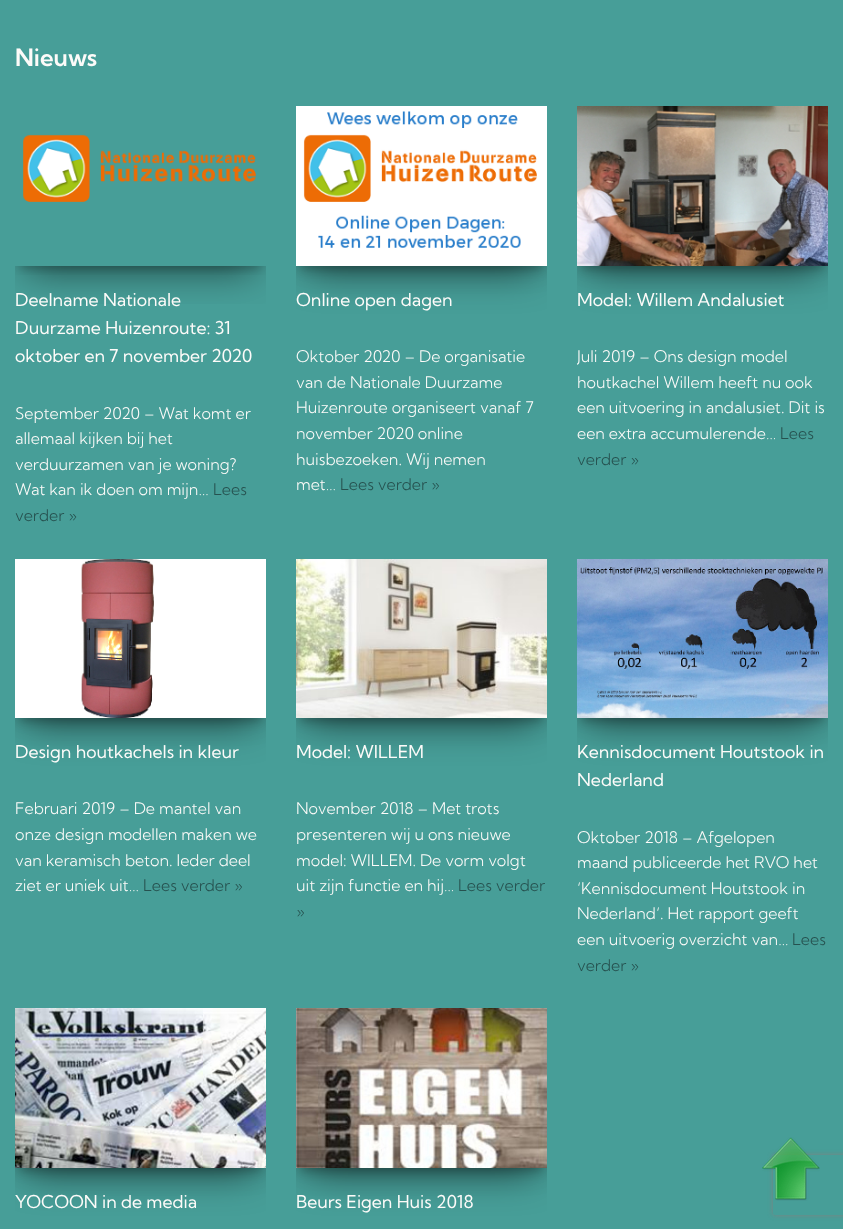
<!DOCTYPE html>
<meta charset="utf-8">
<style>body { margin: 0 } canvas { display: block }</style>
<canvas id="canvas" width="843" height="1229"></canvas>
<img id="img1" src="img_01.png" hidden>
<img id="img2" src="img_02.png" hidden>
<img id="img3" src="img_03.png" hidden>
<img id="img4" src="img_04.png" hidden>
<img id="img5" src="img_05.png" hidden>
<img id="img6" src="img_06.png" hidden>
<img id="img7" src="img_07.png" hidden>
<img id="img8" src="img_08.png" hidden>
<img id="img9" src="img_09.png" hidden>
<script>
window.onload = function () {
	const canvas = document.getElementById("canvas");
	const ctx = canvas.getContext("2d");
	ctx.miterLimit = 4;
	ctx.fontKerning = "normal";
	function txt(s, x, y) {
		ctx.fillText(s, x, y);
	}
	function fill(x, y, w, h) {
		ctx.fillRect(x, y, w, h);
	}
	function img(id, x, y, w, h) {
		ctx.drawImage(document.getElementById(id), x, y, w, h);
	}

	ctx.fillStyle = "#479E98";
	fill(0, 0, 843, 1229);
	ctx.save();
	ctx.beginPath();
	ctx.rect(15, 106, 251, 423);
	ctx.clip();
	ctx.beginPath();
	ctx.rect(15, 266, 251, 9);
	ctx.clip();
	ctx.fillStyle = "rgba(0, 0, 0, 0.2)";
	ctx.filter = "blur(5px)";
	ctx.beginPath();
	ctx.rect(20, 119, 241, 150);
	ctx.fill();
	ctx.filter = "none";
	ctx.restore();
	ctx.save();
	ctx.beginPath();
	ctx.rect(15, 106, 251, 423);
	ctx.clip();
	ctx.beginPath();
	ctx.rect(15, 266, 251, 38);
	ctx.clip();
	ctx.fillStyle = "rgba(0, 0, 0, 0.56)";
	ctx.filter = "blur(19px)";
	ctx.beginPath();
	ctx.rect(27, 134, 227, 136);
	ctx.fill();
	ctx.filter = "none";
	ctx.restore();
	img("img1", 23, 134, 233, 68);
	ctx.save();
	ctx.beginPath();
	ctx.rect(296, 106, 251, 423);
	ctx.clip();
	ctx.fillStyle = "rgba(0, 0, 0, 0.2)";
	ctx.filter = "blur(5px)";
	ctx.beginPath();
	ctx.rect(301, 119, 241, 150);
	ctx.fill();
	ctx.filter = "none";
	ctx.fillStyle = "rgba(0, 0, 0, 0.12)";
	ctx.filter = "blur(12.5px)";
	ctx.beginPath();
	ctx.rect(296, 110, 251, 160);
	ctx.fill();
	ctx.filter = "none";
	ctx.fillStyle = "rgba(0, 0, 0, 0.56)";
	ctx.filter = "blur(19px)";
	ctx.beginPath();
	ctx.rect(308, 134, 227, 136);
	ctx.fill();
	ctx.filter = "none";
	ctx.restore();
	img("img2", 296, 106, 251, 160);
	ctx.save();
	ctx.beginPath();
	ctx.rect(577, 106, 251, 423);
	ctx.clip();
	ctx.fillStyle = "rgba(0, 0, 0, 0.2)";
	ctx.filter = "blur(5px)";
	ctx.beginPath();
	ctx.rect(582, 119, 241, 150);
	ctx.fill();
	ctx.filter = "none";
	ctx.fillStyle = "rgba(0, 0, 0, 0.12)";
	ctx.filter = "blur(12.5px)";
	ctx.beginPath();
	ctx.rect(577, 110, 251, 160);
	ctx.fill();
	ctx.filter = "none";
	ctx.fillStyle = "rgba(0, 0, 0, 0.56)";
	ctx.filter = "blur(19px)";
	ctx.beginPath();
	ctx.rect(589, 134, 227, 136);
	ctx.fill();
	ctx.filter = "none";
	ctx.restore();
	img("img3", 577, 106, 251, 160);
	ctx.save();
	ctx.beginPath();
	ctx.rect(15, 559, 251, 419);
	ctx.clip();
	ctx.fillStyle = "rgba(0, 0, 0, 0.2)";
	ctx.filter = "blur(5px)";
	ctx.beginPath();
	ctx.rect(20, 572, 241, 149);
	ctx.fill();
	ctx.filter = "none";
	ctx.fillStyle = "rgba(0, 0, 0, 0.12)";
	ctx.filter = "blur(12.5px)";
	ctx.beginPath();
	ctx.rect(15, 563, 251, 159);
	ctx.fill();
	ctx.filter = "none";
	ctx.fillStyle = "rgba(0, 0, 0, 0.56)";
	ctx.filter = "blur(19px)";
	ctx.beginPath();
	ctx.rect(27, 587, 227, 135);
	ctx.fill();
	ctx.filter = "none";
	ctx.restore();
	img("img4", 15, 559, 251, 159);
	ctx.save();
	ctx.beginPath();
	ctx.rect(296, 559, 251, 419);
	ctx.clip();
	ctx.fillStyle = "rgba(0, 0, 0, 0.2)";
	ctx.filter = "blur(5px)";
	ctx.beginPath();
	ctx.rect(301, 572, 241, 149);
	ctx.fill();
	ctx.filter = "none";
	ctx.fillStyle = "rgba(0, 0, 0, 0.12)";
	ctx.filter = "blur(12.5px)";
	ctx.beginPath();
	ctx.rect(296, 563, 251, 159);
	ctx.fill();
	ctx.filter = "none";
	ctx.fillStyle = "rgba(0, 0, 0, 0.56)";
	ctx.filter = "blur(19px)";
	ctx.beginPath();
	ctx.rect(308, 587, 227, 135);
	ctx.fill();
	ctx.filter = "none";
	ctx.restore();
	img("img5", 296, 559, 251, 159);
	ctx.save();
	ctx.beginPath();
	ctx.rect(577, 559, 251, 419);
	ctx.clip();
	ctx.fillStyle = "rgba(0, 0, 0, 0.2)";
	ctx.filter = "blur(5px)";
	ctx.beginPath();
	ctx.rect(582, 572, 241, 149);
	ctx.fill();
	ctx.filter = "none";
	ctx.fillStyle = "rgba(0, 0, 0, 0.12)";
	ctx.filter = "blur(12.5px)";
	ctx.beginPath();
	ctx.rect(577, 563, 251, 159);
	ctx.fill();
	ctx.filter = "none";
	ctx.fillStyle = "rgba(0, 0, 0, 0.56)";
	ctx.filter = "blur(19px)";
	ctx.beginPath();
	ctx.rect(589, 587, 227, 135);
	ctx.fill();
	ctx.filter = "none";
	ctx.restore();
	img("img6", 577, 559, 251, 159);
	ctx.save();
	ctx.beginPath();
	ctx.rect(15, 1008, 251, 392);
	ctx.clip();
	ctx.fillStyle = "rgba(0, 0, 0, 0.2)";
	ctx.filter = "blur(5px)";
	ctx.beginPath();
	ctx.rect(20, 1021, 241, 150);
	ctx.fill();
	ctx.filter = "none";
	ctx.fillStyle = "rgba(0, 0, 0, 0.12)";
	ctx.filter = "blur(12.5px)";
	ctx.beginPath();
	ctx.rect(15, 1012, 251, 160);
	ctx.fill();
	ctx.filter = "none";
	ctx.fillStyle = "rgba(0, 0, 0, 0.56)";
	ctx.filter = "blur(19px)";
	ctx.beginPath();
	ctx.rect(27, 1036, 227, 136);
	ctx.fill();
	ctx.filter = "none";
	ctx.restore();
	img("img7", 15, 1008, 251, 160);
	ctx.save();
	ctx.beginPath();
	ctx.rect(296, 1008, 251, 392);
	ctx.clip();
	ctx.fillStyle = "rgba(0, 0, 0, 0.2)";
	ctx.filter = "blur(5px)";
	ctx.beginPath();
	ctx.rect(301, 1021, 241, 150);
	ctx.fill();
	ctx.filter = "none";
	ctx.fillStyle = "rgba(0, 0, 0, 0.12)";
	ctx.filter = "blur(12.5px)";
	ctx.beginPath();
	ctx.rect(296, 1012, 251, 160);
	ctx.fill();
	ctx.filter = "none";
	ctx.fillStyle = "rgba(0, 0, 0, 0.56)";
	ctx.filter = "blur(19px)";
	ctx.beginPath();
	ctx.rect(308, 1036, 227, 136);
	ctx.fill();
	ctx.filter = "none";
	ctx.restore();
	img("img8", 296, 1008, 251, 160);
	ctx.save();
	ctx.beginPath();
	ctx.moveTo(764, 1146);
	ctx.lineTo(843, 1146);
	ctx.lineTo(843, 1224);
	ctx.lineTo(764, 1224);
	ctx.closePath();
	ctx.moveTo(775, 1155);
	ctx.lineTo(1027, 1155);
	ctx.bezierCurveTo(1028, 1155, 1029, 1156, 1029, 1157);
	ctx.lineTo(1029, 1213);
	ctx.bezierCurveTo(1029, 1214, 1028, 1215, 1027, 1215);
	ctx.lineTo(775, 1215);
	ctx.bezierCurveTo(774, 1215, 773, 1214, 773, 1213);
	ctx.lineTo(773, 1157);
	ctx.bezierCurveTo(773, 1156, 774, 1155, 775, 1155);
	ctx.closePath();
	ctx.clip("evenodd");
	ctx.fillStyle = "#808080";
	ctx.filter = "blur(2.5px)";
	ctx.beginPath();
	ctx.roundRect(773, 1155, 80, 60, 2);
	ctx.fill();
	ctx.filter = "none";
	ctx.restore();
	img("img9", 762, 1137, 58, 64);
	ctx.font = "600 24px Kumbh Sans";
	ctx.fillStyle = "#FDFBF9";
	txt("Nieuws", 15, 66);
	ctx.font = "17.6px Kumbh Sans";
	txt("Deelname Nationale", 15, 306);
	txt("Duurzame Huizenroute: 31", 15, 334);
	txt("oktober en 7 november 2020", 15, 362);
	ctx.font = "300 16px Kumbh Sans";
	txt("September 2020 – Wat komt er", 15, 419);
	txt("allemaal kijken bij het", 15, 444);
	txt("verduurzamen van je woning?", 15, 470);
	txt("Wat kan ik doen om mijn…", 15, 495);
	ctx.fillStyle = "#26514F";
	txt("Lees", 213, 495);
	txt("verder »", 15, 521);
	ctx.font = "17.6px Kumbh Sans";
	ctx.fillStyle = "#FDFBF9";
	txt("Online open dagen", 296, 306);
	ctx.font = "300 16px Kumbh Sans";
	txt("Oktober 2020 – De organisatie", 296, 362);
	txt("van de Nationale Duurzame", 296, 388);
	txt("Huizenroute organiseert vanaf 7", 296, 413);
	txt("november 2020 online", 296, 439);
	txt("huisbezoeken. Wij nemen", 296, 465);
	txt("met…", 296, 490);
	ctx.fillStyle = "#26514F";
	txt("Lees verder »", 340, 490);
	ctx.font = "17.6px Kumbh Sans";
	ctx.fillStyle = "#FDFBF9";
	txt("Model: Willem Andalusiet", 577, 306);
	ctx.save();
	ctx.beginPath();
	ctx.rect(577, 106, 251, 423);
	ctx.clip();
	ctx.font = "300 16px Kumbh Sans";
	txt("Juli 2019 – Ons design model", 577, 362);
	ctx.restore();
	ctx.font = "300 16px Kumbh Sans";
	txt("houtkachel Willem heeft nu ook", 577, 388);
	txt("een uitvoering in andalusiet. Dit is", 577, 413);
	txt("een extra accumulerende…", 577, 439);
	ctx.fillStyle = "#26514F";
	txt("Lees", 780, 439);
	txt("verder »", 577, 465);
	ctx.font = "17.6px Kumbh Sans";
	ctx.fillStyle = "#FDFBF9";
	txt("Design houtkachels in kleur", 15, 758);
	ctx.font = "300 16px Kumbh Sans";
	txt("Februari 2019 – De mantel van", 15, 814);
	txt("onze design modellen maken we", 15, 840);
	txt("van keramisch beton. Ieder deel", 15, 866);
	txt("ziet er uniek uit…", 15, 891);
	ctx.fillStyle = "#26514F";
	txt("Lees verder »", 143, 891);
	ctx.font = "17.6px Kumbh Sans";
	ctx.fillStyle = "#FDFBF9";
	txt("Model: WILLEM", 296, 758);
	ctx.font = "300 16px Kumbh Sans";
	txt("November 2018 – Met trots", 296, 814);
	txt("presenteren wij u ons nieuwe", 296, 840);
	txt("model: WILLEM. De vorm volgt", 296, 866);
	txt("uit zijn functie en hij…", 296, 891);
	ctx.fillStyle = "#26514F";
	txt("Lees verder", 458, 891);
	txt("»", 296, 917);
	ctx.font = "17.6px Kumbh Sans";
	ctx.fillStyle = "#FDFBF9";
	txt("Kennisdocument Houtstook in", 577, 758);
	txt("Nederland", 577, 786);
	ctx.font = "300 16px Kumbh Sans";
	txt("Oktober 2018 – Afgelopen", 577, 843);
	txt("maand publiceerde het RVO het", 577, 868);
	txt("‘Kennisdocument Houtstook in", 577, 894);
	txt("Nederland‘. Het rapport geeft", 577, 919);
	txt("een uitvoerig overzicht van…", 577, 945);
	ctx.fillStyle = "#26514F";
	txt("Lees", 792, 945);
	txt("verder »", 577, 971);
	ctx.font = "17.6px Kumbh Sans";
	ctx.fillStyle = "#FDFBF9";
	txt("YOCOON in de media", 15, 1208);
	txt("Beurs Eigen Huis 2018", 296, 1208);
};
</script>
